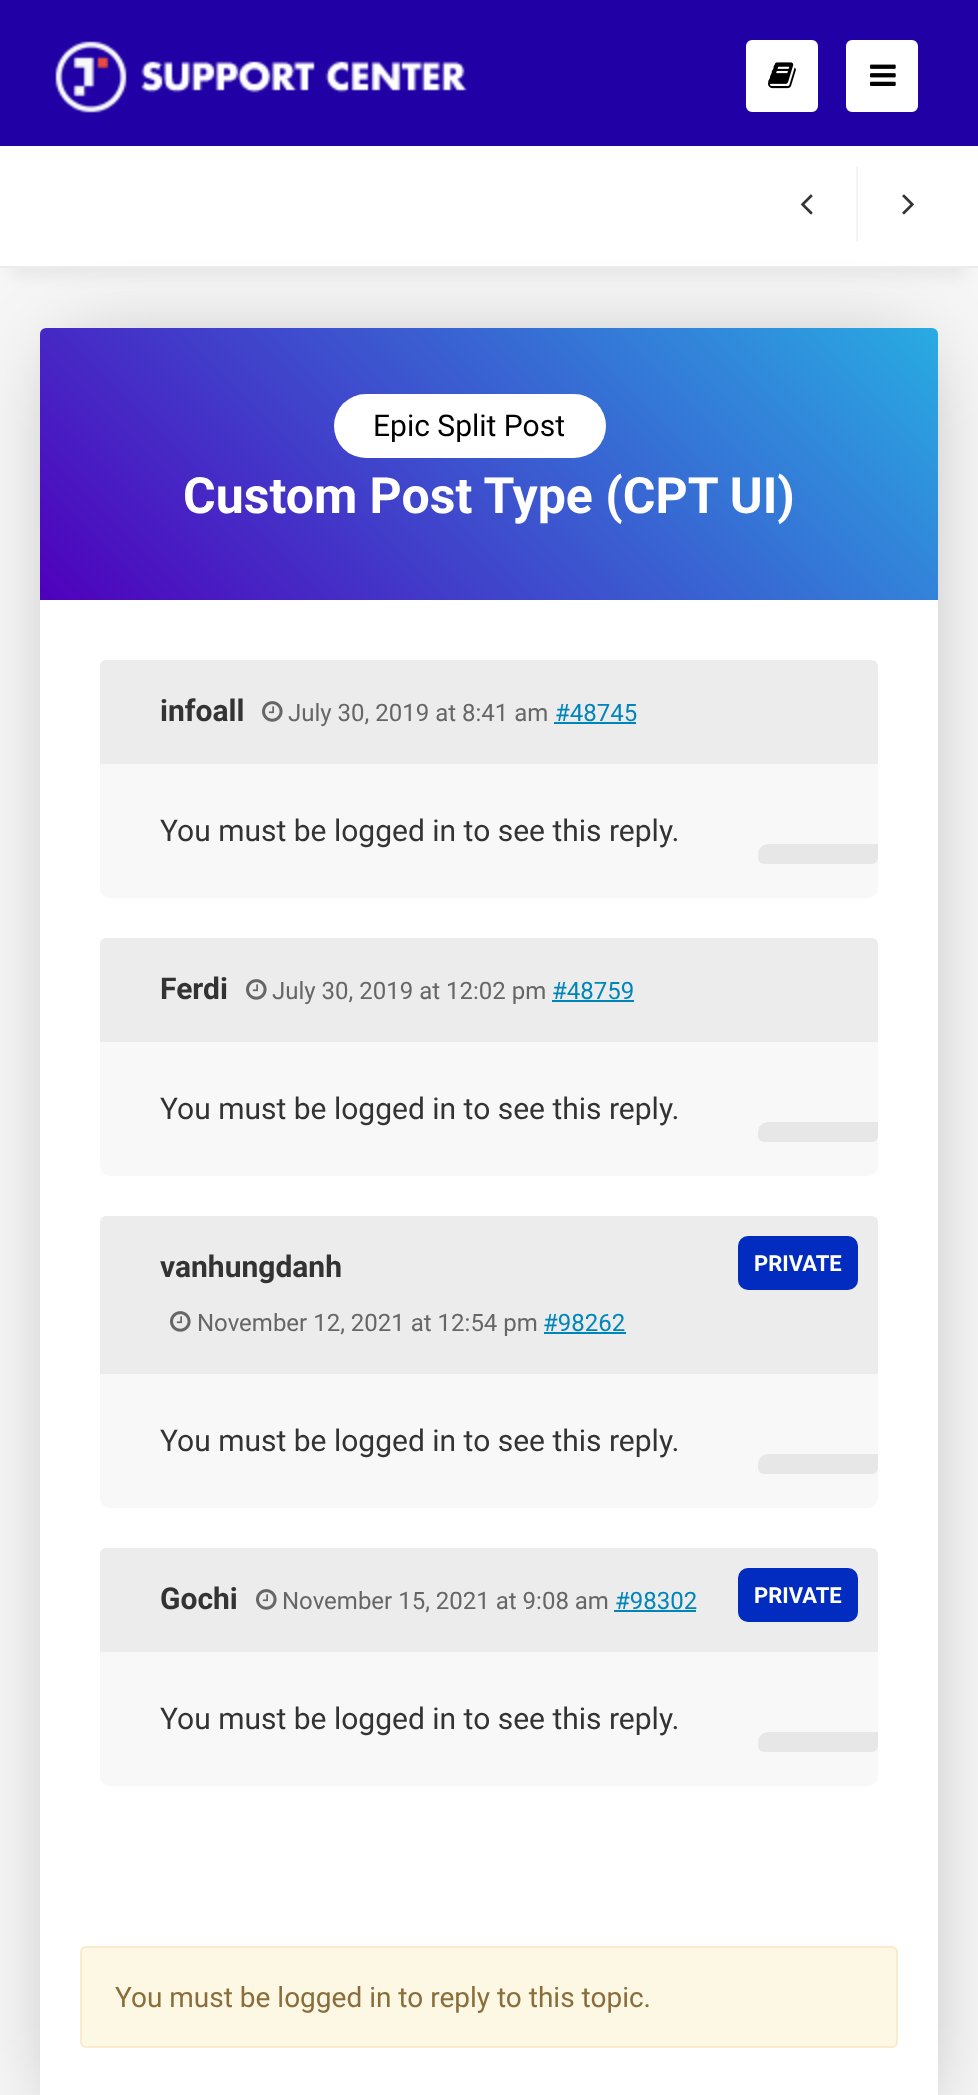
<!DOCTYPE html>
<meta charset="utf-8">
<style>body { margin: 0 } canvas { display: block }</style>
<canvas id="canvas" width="978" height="2095"></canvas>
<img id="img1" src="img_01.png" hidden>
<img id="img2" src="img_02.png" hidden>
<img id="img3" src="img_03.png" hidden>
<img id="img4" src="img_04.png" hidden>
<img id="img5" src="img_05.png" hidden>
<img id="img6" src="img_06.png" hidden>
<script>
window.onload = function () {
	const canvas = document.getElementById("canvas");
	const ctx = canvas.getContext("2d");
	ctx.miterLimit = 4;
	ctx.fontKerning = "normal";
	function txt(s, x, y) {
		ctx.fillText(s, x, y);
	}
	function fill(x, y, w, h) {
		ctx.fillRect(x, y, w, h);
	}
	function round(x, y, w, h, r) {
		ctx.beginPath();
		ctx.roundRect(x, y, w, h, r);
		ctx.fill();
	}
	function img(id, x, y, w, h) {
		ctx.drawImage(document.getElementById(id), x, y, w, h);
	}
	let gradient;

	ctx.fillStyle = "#F6F6F6";
	fill(0, 0, 978, 2095);
	ctx.fillStyle = "#2100A5";
	fill(0, 0, 978, 146);
	img("img1", 55, 41, 412, 72);
	ctx.fillStyle = "#FFFFFF";
	ctx.beginPath();
	ctx.roundRect(747, 41, 70, 70, 5);
	ctx.fill();
	ctx.strokeStyle = "#FFFFFF";
	ctx.lineWidth = 2;
	ctx.stroke();
	img("img2", 768, 62, 28, 27);
	ctx.beginPath();
	ctx.roundRect(847, 41, 70, 70, 5);
	ctx.fill();
	ctx.stroke();
	img("img3", 870, 64, 26, 22);
	ctx.fillStyle = "rgba(0, 0, 0, 0.05)";
	ctx.filter = "blur(7px)";
	ctx.beginPath();
	ctx.rect(12, 180, 954, 98);
	ctx.fill();
	ctx.filter = "none";
	ctx.fillStyle = "#FFFFFF";
	fill(0, 146, 978, 120);
	ctx.fillStyle = "#ECECEC";
	fill(0, 266, 978, 2);
	ctx.fillStyle = "rgba(0, 0, 0, 0.3)";
	ctx.filter = "blur(43px)";
	ctx.beginPath();
	ctx.rect(66, 354, 850, 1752);
	ctx.fill();
	ctx.filter = "none";
	ctx.fillStyle = "#F5F5F5";
	fill(856, 166, 2, 76);
	img("img4", 800, 194, 13, 21);
	img("img5", 902, 194, 12, 21);
	ctx.fillStyle = "#FFFFFF";
	round(40, 328, 898, 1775, 8);
	gradient = ctx.createLinearGradient(197, 757, 782, 172);
	gradient.addColorStop(0, "#4F00BC");
	gradient.addColorStop(1, "#29ABE2");
	ctx.fillStyle = gradient;
	ctx.beginPath();
	ctx.roundRect(40, 328, 898, 272, [6, 6, 0, 0]);
	ctx.fill();
	ctx.fillStyle = "#FFFFFF";
	round(334, 394, 272, 64, 32);
	ctx.fillStyle = "#F8F8F8";
	round(100, 660, 778, 238, 10);
	ctx.fillStyle = "#ECECEC";
	ctx.beginPath();
	ctx.roundRect(100, 660, 778, 104, [6, 6, 0, 0]);
	ctx.fill();
	img("img6", 262, 701, 21, 21);
	ctx.fillStyle = "#0085BA";
	fill(554, 722, 82, 2);
	ctx.fillStyle = "#E7E7E7";
	ctx.beginPath();
	ctx.roundRect(758, 844, 120, 20, [10, 0, 6, 6]);
	ctx.fill();
	ctx.fillStyle = "#F8F8F8";
	round(100, 938, 778, 238, 10);
	ctx.fillStyle = "#ECECEC";
	ctx.beginPath();
	ctx.roundRect(100, 938, 778, 104, [6, 6, 0, 0]);
	ctx.fill();
	img("img6", 246, 979, 21, 21);
	ctx.fillStyle = "#0085BA";
	fill(552, 1000, 82, 2);
	ctx.fillStyle = "#E7E7E7";
	ctx.beginPath();
	ctx.roundRect(758, 1122, 120, 20, [10, 0, 6, 6]);
	ctx.fill();
	ctx.fillStyle = "#F8F8F8";
	round(100, 1216, 778, 292, 10);
	ctx.fillStyle = "#ECECEC";
	ctx.beginPath();
	ctx.roundRect(100, 1216, 778, 158, [6, 6, 0, 0]);
	ctx.fill();
	img("img6", 170, 1311, 21, 21);
	ctx.fillStyle = "#0085BA";
	fill(544, 1332, 82, 2);
	ctx.fillStyle = "#E7E7E7";
	ctx.beginPath();
	ctx.roundRect(758, 1454, 120, 20, [10, 0, 6, 6]);
	ctx.fill();
	ctx.fillStyle = "#022CBF";
	round(738, 1236, 120, 54, 10);
	ctx.fillStyle = "#F8F8F8";
	round(100, 1548, 778, 238, 10);
	ctx.fillStyle = "#ECECEC";
	ctx.beginPath();
	ctx.roundRect(100, 1548, 778, 104, [6, 6, 0, 0]);
	ctx.fill();
	img("img6", 256, 1589, 21, 21);
	ctx.fillStyle = "#0085BA";
	fill(614, 1610, 82, 2);
	ctx.fillStyle = "#E7E7E7";
	ctx.beginPath();
	ctx.roundRect(758, 1732, 120, 20, [10, 0, 6, 6]);
	ctx.fill();
	ctx.fillStyle = "#022CBF";
	round(738, 1568, 120, 54, 10);
	ctx.fillStyle = "#FCF8E3";
	ctx.beginPath();
	ctx.roundRect(81, 1947, 816, 100, 5);
	ctx.fill();
	ctx.strokeStyle = "#FAEBCC";
	ctx.stroke();
	ctx.font = "30px Roboto";
	ctx.fillStyle = "#000000";
	txt("Epic Split Post", 373, 436);
	ctx.font = "bold 50px Roboto";
	ctx.fillStyle = "#FFFFFF";
	txt("Custom Post Type (CPT UI)", 183, 513);
	ctx.font = "bold 30px Roboto";
	ctx.fillStyle = "#333333";
	txt("infoall", 160, 721);
	ctx.font = "24px Roboto";
	ctx.fillStyle = "#666666";
	txt("July 30, 2019 at 8:41 am", 288, 721);
	ctx.fillStyle = "#0085BA";
	txt("#48745", 555, 721);
	ctx.font = "30px Roboto";
	ctx.fillStyle = "#333333";
	txt("You must be logged in to see this reply.", 160, 841);
	ctx.font = "bold 30px Roboto";
	txt("Ferdi", 160, 999);
	ctx.font = "24px Roboto";
	ctx.fillStyle = "#666666";
	txt("July 30, 2019 at 12:02 pm", 272, 999);
	ctx.fillStyle = "#0085BA";
	txt("#48759", 552, 999);
	ctx.font = "30px Roboto";
	ctx.fillStyle = "#333333";
	txt("You must be logged in to see this reply.", 160, 1119);
	ctx.font = "bold 30px Roboto";
	txt("vanhungdanh", 160, 1277);
	ctx.font = "24px Roboto";
	ctx.fillStyle = "#666666";
	txt("November 12, 2021 at 12:54 pm", 197, 1331);
	ctx.fillStyle = "#0085BA";
	txt("#98262", 543, 1331);
	ctx.font = "30px Roboto";
	ctx.fillStyle = "#333333";
	txt("You must be logged in to see this reply.", 160, 1451);
	ctx.font = "bold 22px Roboto";
	ctx.fillStyle = "#FFFFFF";
	txt("PRIVATE", 754, 1271);
	ctx.font = "bold 30px Roboto";
	ctx.fillStyle = "#333333";
	txt("Gochi", 160, 1609);
	ctx.font = "24px Roboto";
	ctx.fillStyle = "#666666";
	txt("November 15, 2021 at 9:08 am", 282, 1609);
	ctx.fillStyle = "#0085BA";
	txt("#98302", 615, 1609);
	ctx.font = "30px Roboto";
	ctx.fillStyle = "#333333";
	txt("You must be logged in to see this reply.", 160, 1729);
	ctx.font = "bold 22px Roboto";
	ctx.fillStyle = "#FFFFFF";
	txt("PRIVATE", 754, 1603);
	ctx.font = "28px Roboto";
	ctx.fillStyle = "#8A6D3B";
	txt("You must be logged in to reply to this topic.", 115, 2007);
};
</script>
